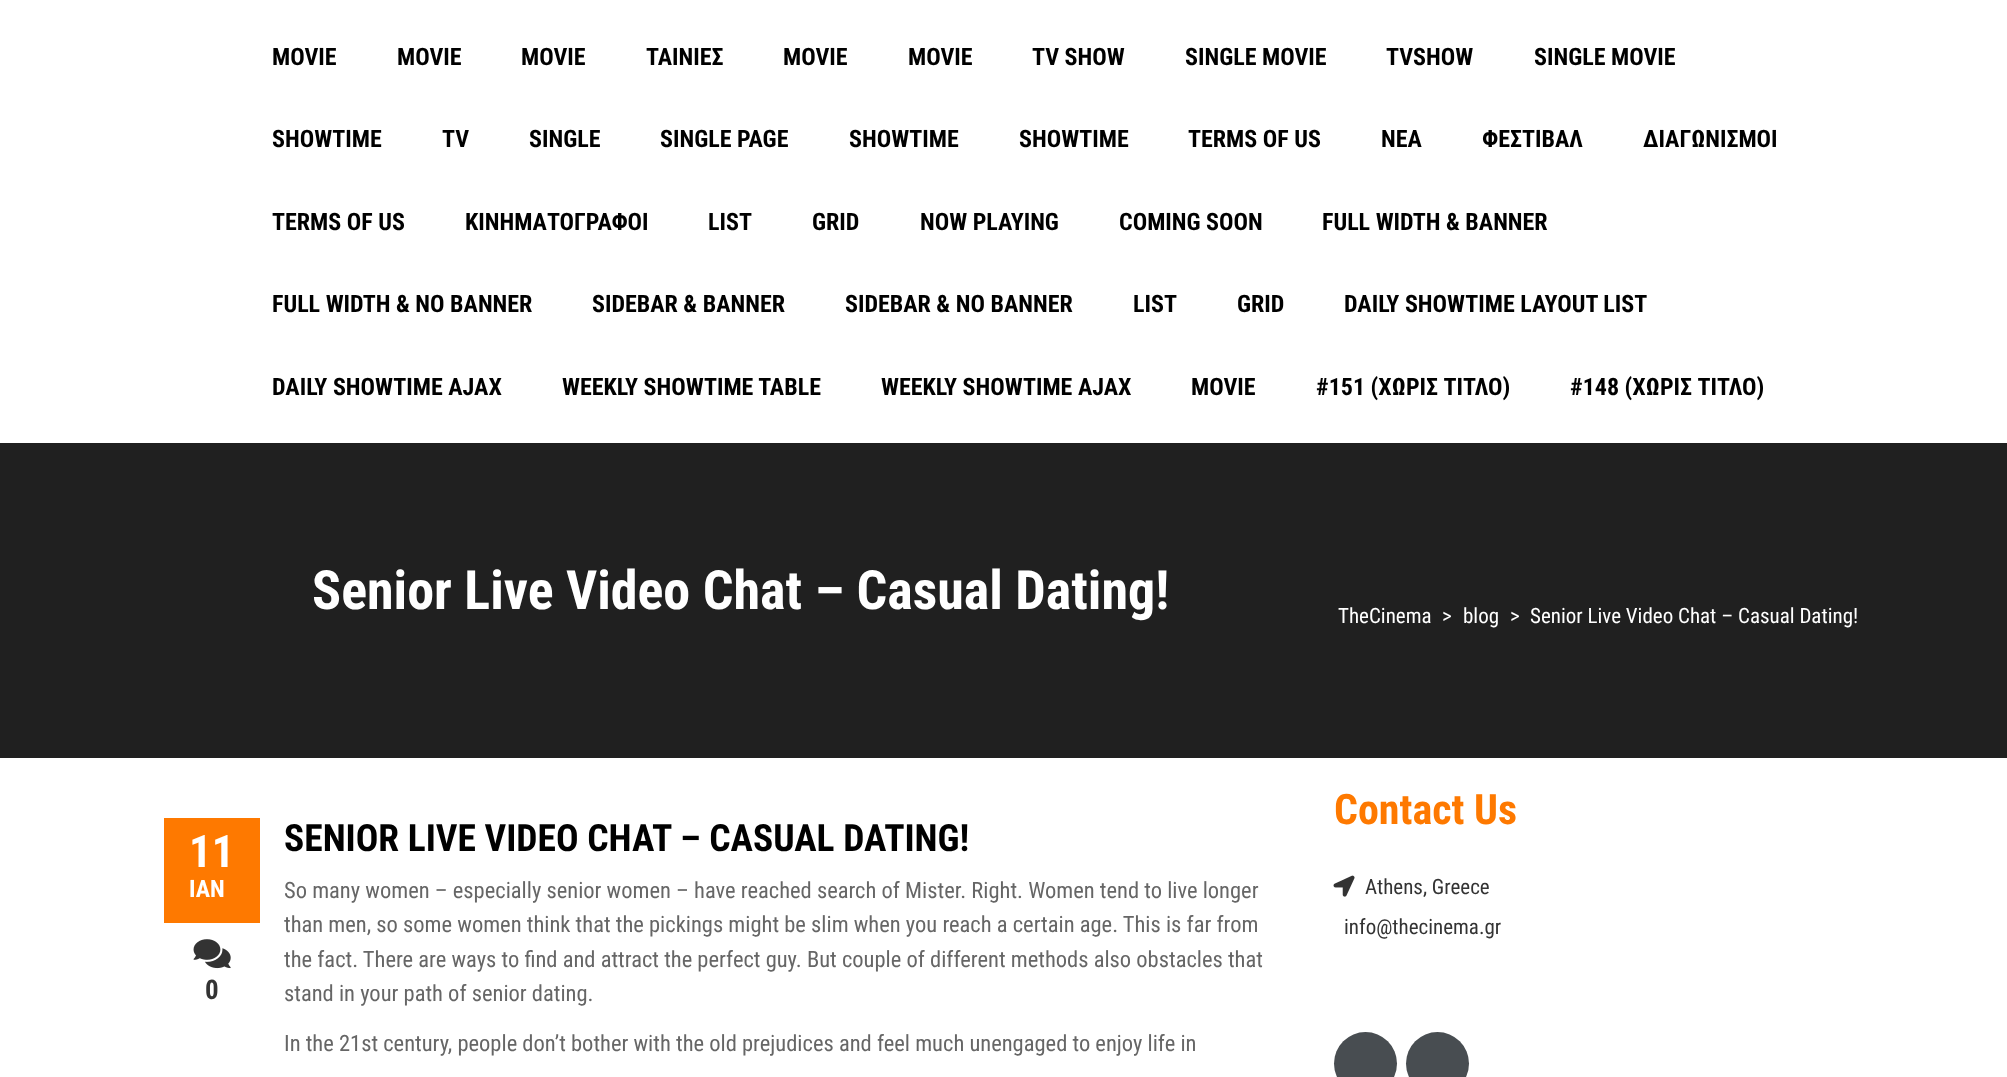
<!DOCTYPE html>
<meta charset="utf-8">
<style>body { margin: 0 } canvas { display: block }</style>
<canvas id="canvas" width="2007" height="1077"></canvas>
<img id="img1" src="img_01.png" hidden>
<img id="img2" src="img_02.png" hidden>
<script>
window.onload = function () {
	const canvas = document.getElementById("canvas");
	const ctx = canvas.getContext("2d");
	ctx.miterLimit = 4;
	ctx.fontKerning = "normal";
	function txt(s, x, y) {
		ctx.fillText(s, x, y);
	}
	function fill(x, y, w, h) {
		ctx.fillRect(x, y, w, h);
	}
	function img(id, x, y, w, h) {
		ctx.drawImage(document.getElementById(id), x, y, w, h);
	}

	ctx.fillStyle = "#FFFFFF";
	fill(0, 0, 2007, 1077);
	ctx.fillStyle = "#202020";
	fill(0, 443, 2007, 315);
	ctx.fillStyle = "#FE7900";
	fill(164, 818, 96, 105);
	img("img1", 193, 939, 38, 30);
	img("img2", 1333, 875, 22, 22);
	ctx.fillStyle = "#484D51";
	ctx.beginPath();
	ctx.arc(1365.5, 1063.5, 31.5, 0, Math.PI * 2);
	ctx.fill();
	ctx.beginPath();
	ctx.arc(1437.5, 1063.5, 31.5, 0, Math.PI * 2);
	ctx.fill();
	ctx.font = "bold 24px Roboto Condensed";
	ctx.fillStyle = "#000000";
	txt("MOVIE", 272, 65);
	txt("MOVIE", 397, 65);
	txt("MOVIE", 521, 65);
	txt("ΤΑΙΝΙΕΣ", 646, 65);
	txt("MOVIE", 783, 65);
	txt("MOVIE", 908, 65);
	txt("TV SHOW", 1032, 65);
	txt("SINGLE MOVIE", 1185, 65);
	txt("TVSHOW", 1386, 65);
	txt("SINGLE MOVIE", 1534, 65);
	txt("SHOWTIME", 272, 147);
	txt("TV", 442, 147);
	txt("SINGLE", 529, 147);
	txt("SINGLE PAGE", 660, 147);
	txt("SHOWTIME", 849, 147);
	txt("SHOWTIME", 1019, 147);
	txt("TERMS OF US", 1188, 147);
	txt("ΝΕΑ", 1381, 147);
	txt("ΦΕΣΤΙΒΑΛ", 1482, 147);
	txt("ΔΙΑΓΩΝΙΣΜΟΙ", 1643, 147);
	txt("TERMS OF US", 272, 230);
	txt("ΚΙΝΗΜΑΤΟΓΡΑΦΟΙ", 465, 230);
	txt("LIST", 708, 230);
	txt("GRID", 812, 230);
	txt("NOW PLAYING", 920, 230);
	txt("COMING SOON", 1119, 230);
	txt("FULL WIDTH & BANNER", 1322, 230);
	txt("FULL WIDTH & NO BANNER", 272, 312);
	txt("SIDEBAR & BANNER", 592, 312);
	txt("SIDEBAR & NO BANNER", 845, 312);
	txt("LIST", 1133, 312);
	txt("GRID", 1237, 312);
	txt("DAILY SHOWTIME LAYOUT LIST", 1344, 312);
	txt("DAILY SHOWTIME AJAX", 272, 395);
	txt("WEEKLY SHOWTIME TABLE", 562, 395);
	txt("WEEKLY SHOWTIME AJAX", 881, 395);
	txt("MOVIE", 1191, 395);
	txt("#151 (ΧΩΡΙΣ ΤΙΤΛΟ)", 1316, 395);
	txt("#148 (ΧΩΡΙΣ ΤΙΤΛΟ)", 1570, 395);
	ctx.font = "bold 54px Roboto Condensed";
	ctx.fillStyle = "#FFFFFF";
	txt("Senior Live Video Chat – Casual Dating!", 312, 609);
	ctx.font = "21px Roboto Condensed";
	txt("TheCinema", 1338, 623);
	txt(">", 1442, 623);
	txt("blog", 1463, 623);
	txt(">", 1510, 623);
	txt("Senior Live Video Chat – Casual Dating!", 1530, 623);
	ctx.font = "bold 45px Roboto Condensed";
	txt("11", 189, 867);
	ctx.font = "bold 24px Roboto Condensed";
	txt("ΙΑΝ", 189, 897);
	ctx.font = "bold 27px Roboto Condensed";
	ctx.fillStyle = "#333333";
	txt("0", 205, 999);
	ctx.font = "bold 37.5px Roboto Condensed";
	ctx.fillStyle = "#000000";
	txt("SENIOR LIVE VIDEO CHAT – CASUAL DATING!", 284, 851);
	ctx.font = "22.5px Roboto Condensed";
	ctx.fillStyle = "#666666";
	txt("So many women – especially senior women – have reached search of Mister. Right. Women tend to live longer", 284, 898);
	txt("than men, so some women think that the pickings might be slim when you reach a certain age. This is far from", 284, 932);
	txt("the fact. There are ways to find and attract the perfect guy. But couple of different methods also obstacles that", 284, 967);
	txt("stand in your path of senior dating.", 284, 1001);
	txt("In the 21st century, people don’t bother with the old prejudices and feel much unengaged to enjoy life in", 284, 1051);
	ctx.font = "bold 42px Roboto Condensed";
	ctx.fillStyle = "#FE7900";
	txt("Contact Us", 1334, 824);
	ctx.font = "21px Roboto Condensed";
	ctx.fillStyle = "#333333";
	txt("Athens, Greece", 1365, 894);
	txt("info@thecinema.gr", 1344, 934);
};
</script>
